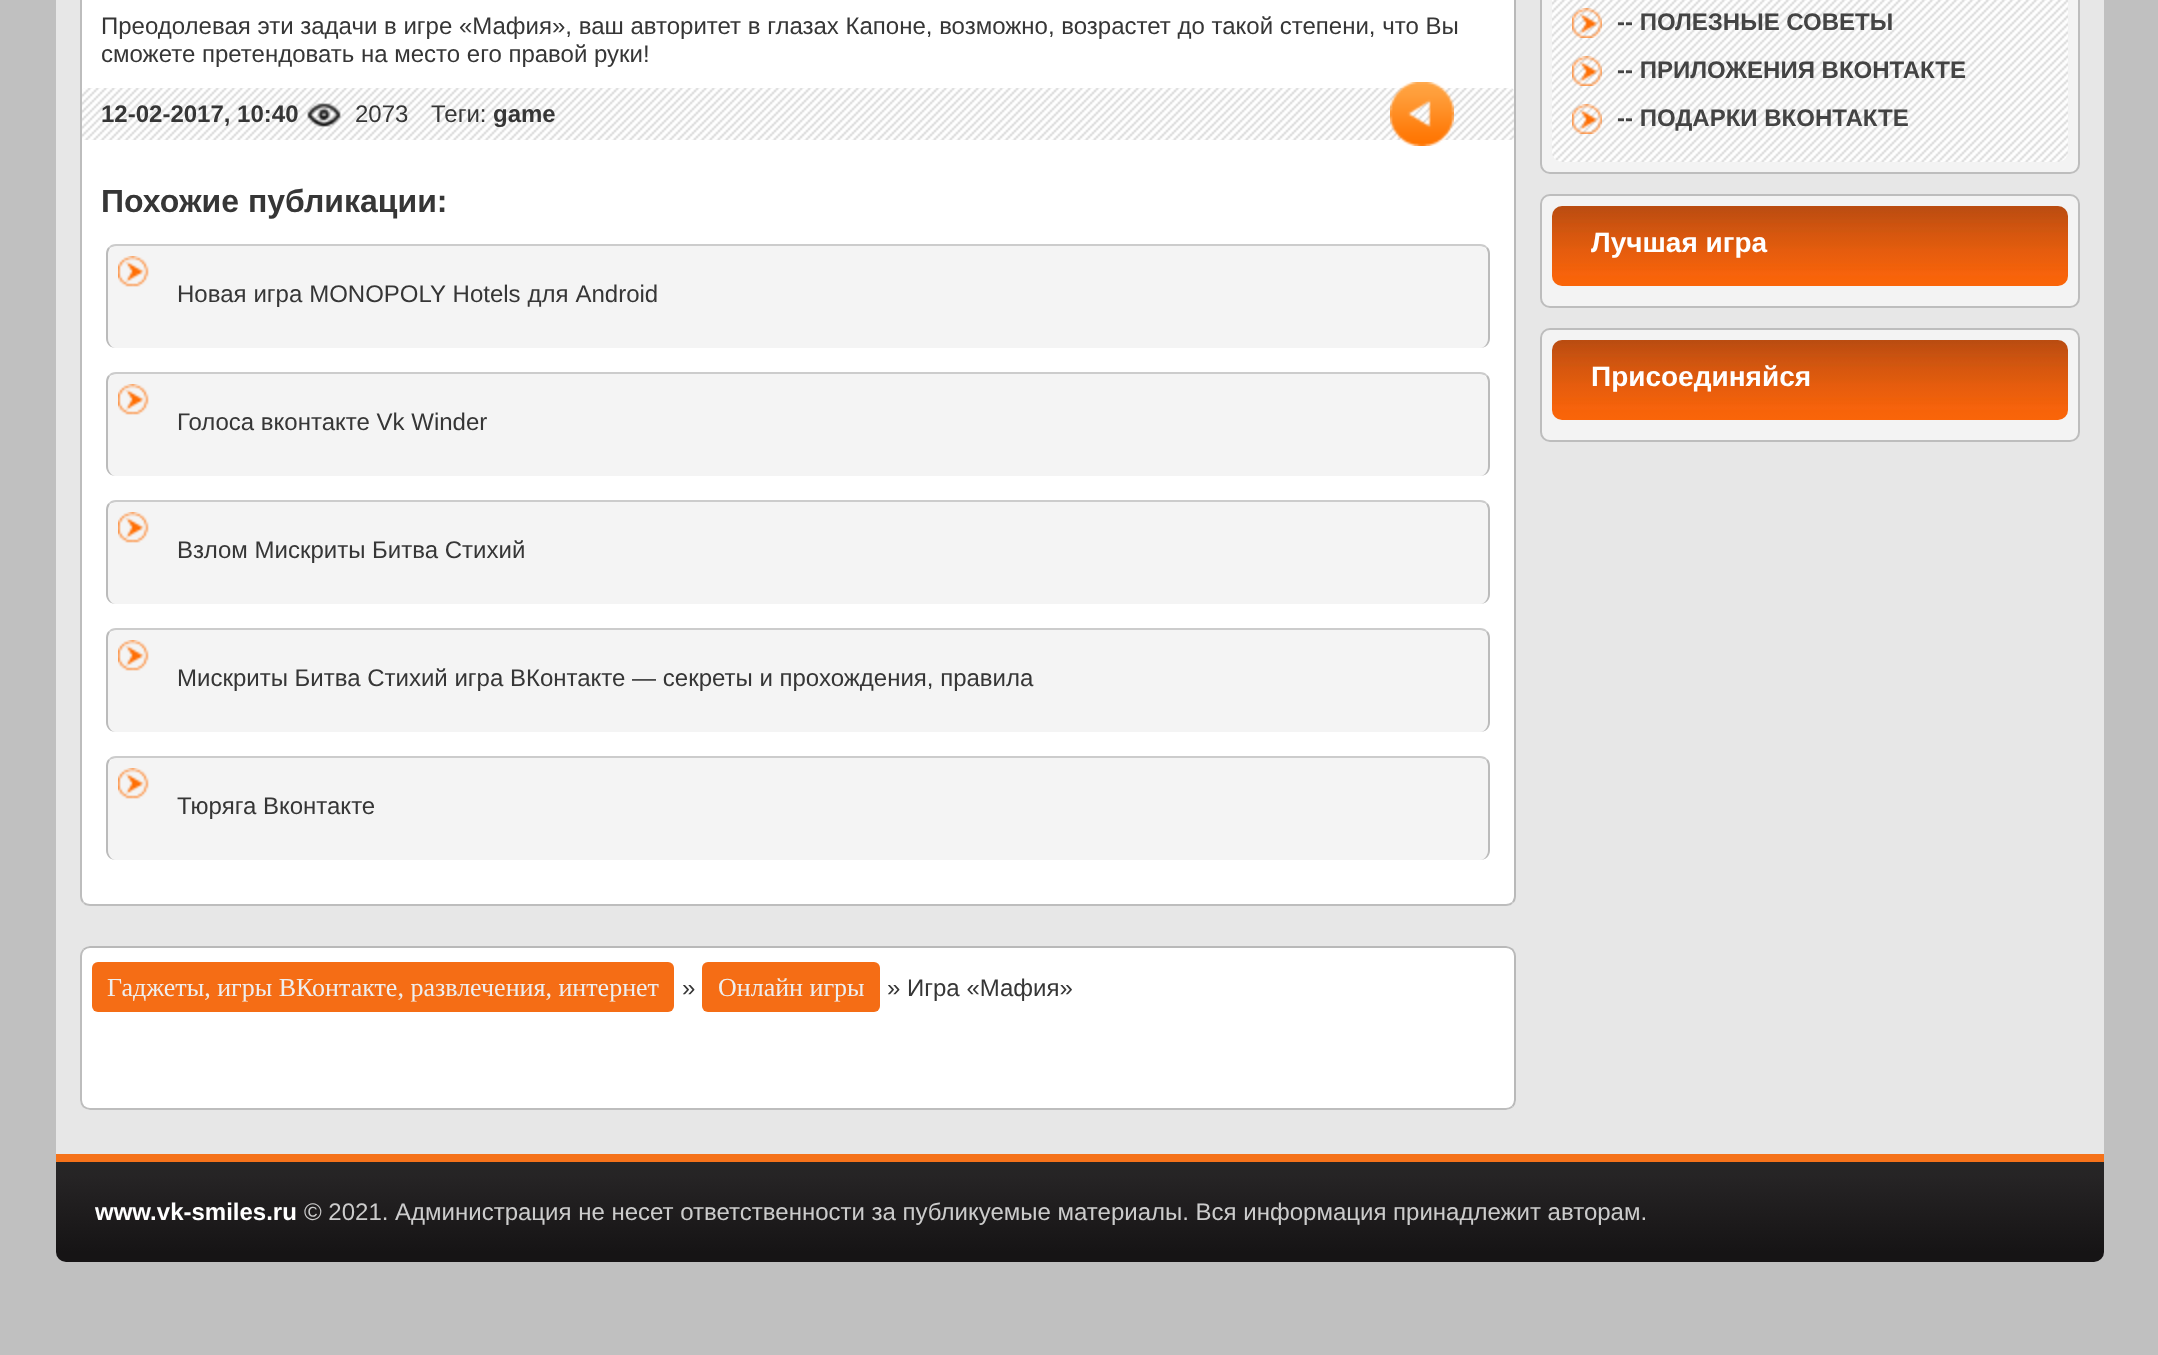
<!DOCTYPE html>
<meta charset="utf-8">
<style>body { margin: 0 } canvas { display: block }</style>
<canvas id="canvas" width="2158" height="1355"></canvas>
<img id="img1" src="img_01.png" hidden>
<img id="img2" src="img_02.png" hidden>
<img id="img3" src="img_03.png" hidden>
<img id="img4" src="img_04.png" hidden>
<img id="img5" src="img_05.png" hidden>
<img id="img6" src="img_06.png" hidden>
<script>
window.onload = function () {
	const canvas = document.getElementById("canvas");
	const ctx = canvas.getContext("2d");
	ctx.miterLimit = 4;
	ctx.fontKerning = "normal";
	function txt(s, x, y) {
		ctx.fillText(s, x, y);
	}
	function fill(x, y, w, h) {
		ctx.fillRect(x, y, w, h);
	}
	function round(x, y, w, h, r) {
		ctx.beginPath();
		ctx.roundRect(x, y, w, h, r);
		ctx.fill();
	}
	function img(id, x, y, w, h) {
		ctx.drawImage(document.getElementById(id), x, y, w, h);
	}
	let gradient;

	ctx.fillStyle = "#C0C0C0";
	fill(0, 0, 2158, 1355);
	ctx.fillStyle = "#E7E7E7";
	fill(56, 0, 2048, 1154);
	ctx.fillStyle = "#FFFFFF";
	ctx.beginPath();
	ctx.moveTo(90, -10);
	ctx.lineTo(1516, -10);
	ctx.lineTo(1516, 896);
	ctx.bezierCurveTo(1516, 901.5, 1511.5, 906, 1506, 906);
	ctx.lineTo(90, 906);
	ctx.bezierCurveTo(84.5, 906, 80, 901.5, 80, 896);
	ctx.lineTo(80, 0);
	ctx.bezierCurveTo(80, -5.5, 84.5, -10, 90, -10);
	ctx.closePath();
	ctx.fill();
	ctx.fillStyle = "#B9B9B9";
	ctx.beginPath();
	ctx.moveTo(1516, -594);
	ctx.lineTo(1514, -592);
	ctx.lineTo(1514, 896);
	ctx.bezierCurveTo(1514, 898, 1513, 900, 1512, 902);
	ctx.lineTo(1513, 903);
	ctx.bezierCurveTo(1515, 902, 1516, 899, 1516, 896);
	ctx.closePath();
	ctx.fill();
	ctx.fillStyle = "#BDBDBD";
	ctx.beginPath();
	ctx.moveTo(90, 906);
	ctx.lineTo(1506, 906);
	ctx.bezierCurveTo(1509, 906, 1512, 905, 1513, 903);
	ctx.lineTo(1512, 902);
	ctx.bezierCurveTo(1510, 903, 1508, 904, 1506, 904);
	ctx.lineTo(90, 904);
	ctx.bezierCurveTo(88, 904, 86, 903, 84, 902);
	ctx.lineTo(83, 903);
	ctx.bezierCurveTo(84, 905, 87, 906, 90, 906);
	ctx.closePath();
	ctx.fill();
	ctx.beginPath();
	ctx.moveTo(80, -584);
	ctx.lineTo(80, 896);
	ctx.bezierCurveTo(80, 899, 81, 902, 83, 903);
	ctx.lineTo(84, 902);
	ctx.bezierCurveTo(83, 900, 82, 898, 82, 896);
	ctx.lineTo(82, -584);
	ctx.bezierCurveTo(82, -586, 83, -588, 84, -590);
	ctx.lineTo(83, -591);
	ctx.bezierCurveTo(81, -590, 80, -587, 80, -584);
	ctx.closePath();
	ctx.fill();
	img("img1", 82, 88, 1432, 52);
	img("img2", 307, 103, 34, 24);
	img("img3", 1390, 82, 64, 64);
	ctx.fillStyle = "#F4F4F4";
	ctx.beginPath();
	ctx.moveTo(116, 246);
	ctx.lineTo(1480, 246);
	ctx.bezierCurveTo(1484, 246, 1488, 250, 1488, 254);
	ctx.lineTo(1488, 338);
	ctx.bezierCurveTo(1488, 344, 1484, 348, 1480, 348);
	ctx.lineTo(116, 348);
	ctx.bezierCurveTo(112, 348, 108, 344, 108, 338);
	ctx.lineTo(108, 254);
	ctx.bezierCurveTo(108, 250, 112, 246, 116, 246);
	ctx.closePath();
	ctx.fill();
	ctx.fillStyle = "#CCCCCC";
	ctx.beginPath();
	ctx.moveTo(116, 244);
	ctx.bezierCurveTo(113, 244, 110, 245, 109, 247);
	ctx.lineTo(110, 248);
	ctx.bezierCurveTo(112, 247, 114, 246, 116, 246);
	ctx.lineTo(1480, 246);
	ctx.bezierCurveTo(1482, 246, 1484, 247, 1486, 248);
	ctx.lineTo(1487, 247);
	ctx.bezierCurveTo(1486, 245, 1483, 244, 1480, 244);
	ctx.closePath();
	ctx.fill();
	ctx.fillStyle = "#BBBBBB";
	ctx.beginPath();
	ctx.moveTo(1490, 338);
	ctx.lineTo(1490, 254);
	ctx.bezierCurveTo(1490, 251, 1489, 248, 1487, 247);
	ctx.lineTo(1486, 248);
	ctx.bezierCurveTo(1487, 250, 1488, 252, 1488, 254);
	ctx.lineTo(1488, 338);
	ctx.bezierCurveTo(1488, 344, 1484, 348, 1480, 348);
	ctx.bezierCurveTo(1486, 348, 1490, 344, 1490, 338);
	ctx.closePath();
	ctx.fill();
	ctx.beginPath();
	ctx.moveTo(106, 254);
	ctx.lineTo(106, 338);
	ctx.bezierCurveTo(106, 344, 110, 348, 116, 348);
	ctx.bezierCurveTo(112, 348, 108, 344, 108, 338);
	ctx.lineTo(108, 254);
	ctx.bezierCurveTo(108, 252, 109, 250, 110, 248);
	ctx.lineTo(109, 247);
	ctx.bezierCurveTo(107, 248, 106, 251, 106, 254);
	ctx.closePath();
	ctx.fill();
	img("img4", 118, 256, 31, 31);
	ctx.fillStyle = "#F4F4F4";
	ctx.beginPath();
	ctx.moveTo(116, 374);
	ctx.lineTo(1480, 374);
	ctx.bezierCurveTo(1484, 374, 1488, 378, 1488, 382);
	ctx.lineTo(1488, 466);
	ctx.bezierCurveTo(1488, 472, 1484, 476, 1480, 476);
	ctx.lineTo(116, 476);
	ctx.bezierCurveTo(112, 476, 108, 472, 108, 466);
	ctx.lineTo(108, 382);
	ctx.bezierCurveTo(108, 378, 112, 374, 116, 374);
	ctx.closePath();
	ctx.fill();
	ctx.fillStyle = "#CCCCCC";
	ctx.beginPath();
	ctx.moveTo(116, 372);
	ctx.bezierCurveTo(113, 372, 110, 373, 109, 375);
	ctx.lineTo(110, 376);
	ctx.bezierCurveTo(112, 375, 114, 374, 116, 374);
	ctx.lineTo(1480, 374);
	ctx.bezierCurveTo(1482, 374, 1484, 375, 1486, 376);
	ctx.lineTo(1487, 375);
	ctx.bezierCurveTo(1486, 373, 1483, 372, 1480, 372);
	ctx.closePath();
	ctx.fill();
	ctx.fillStyle = "#BBBBBB";
	ctx.beginPath();
	ctx.moveTo(1490, 466);
	ctx.lineTo(1490, 382);
	ctx.bezierCurveTo(1490, 379, 1489, 376, 1487, 375);
	ctx.lineTo(1486, 376);
	ctx.bezierCurveTo(1487, 378, 1488, 380, 1488, 382);
	ctx.lineTo(1488, 466);
	ctx.bezierCurveTo(1488, 472, 1484, 476, 1480, 476);
	ctx.bezierCurveTo(1486, 476, 1490, 472, 1490, 466);
	ctx.closePath();
	ctx.fill();
	ctx.beginPath();
	ctx.moveTo(106, 382);
	ctx.lineTo(106, 466);
	ctx.bezierCurveTo(106, 472, 110, 476, 116, 476);
	ctx.bezierCurveTo(112, 476, 108, 472, 108, 466);
	ctx.lineTo(108, 382);
	ctx.bezierCurveTo(108, 380, 109, 378, 110, 376);
	ctx.lineTo(109, 375);
	ctx.bezierCurveTo(107, 376, 106, 379, 106, 382);
	ctx.closePath();
	ctx.fill();
	img("img4", 118, 384, 31, 31);
	ctx.fillStyle = "#F4F4F4";
	ctx.beginPath();
	ctx.moveTo(116, 502);
	ctx.lineTo(1480, 502);
	ctx.bezierCurveTo(1484, 502, 1488, 506, 1488, 510);
	ctx.lineTo(1488, 594);
	ctx.bezierCurveTo(1488, 600, 1484, 604, 1480, 604);
	ctx.lineTo(116, 604);
	ctx.bezierCurveTo(112, 604, 108, 600, 108, 594);
	ctx.lineTo(108, 510);
	ctx.bezierCurveTo(108, 506, 112, 502, 116, 502);
	ctx.closePath();
	ctx.fill();
	ctx.fillStyle = "#CCCCCC";
	ctx.beginPath();
	ctx.moveTo(116, 500);
	ctx.bezierCurveTo(113, 500, 110, 501, 109, 503);
	ctx.lineTo(110, 504);
	ctx.bezierCurveTo(112, 503, 114, 502, 116, 502);
	ctx.lineTo(1480, 502);
	ctx.bezierCurveTo(1482, 502, 1484, 503, 1486, 504);
	ctx.lineTo(1487, 503);
	ctx.bezierCurveTo(1486, 501, 1483, 500, 1480, 500);
	ctx.closePath();
	ctx.fill();
	ctx.fillStyle = "#BBBBBB";
	ctx.beginPath();
	ctx.moveTo(1490, 594);
	ctx.lineTo(1490, 510);
	ctx.bezierCurveTo(1490, 507, 1489, 504, 1487, 503);
	ctx.lineTo(1486, 504);
	ctx.bezierCurveTo(1487, 506, 1488, 508, 1488, 510);
	ctx.lineTo(1488, 594);
	ctx.bezierCurveTo(1488, 600, 1484, 604, 1480, 604);
	ctx.bezierCurveTo(1486, 604, 1490, 600, 1490, 594);
	ctx.closePath();
	ctx.fill();
	ctx.beginPath();
	ctx.moveTo(106, 510);
	ctx.lineTo(106, 594);
	ctx.bezierCurveTo(106, 600, 110, 604, 116, 604);
	ctx.bezierCurveTo(112, 604, 108, 600, 108, 594);
	ctx.lineTo(108, 510);
	ctx.bezierCurveTo(108, 508, 109, 506, 110, 504);
	ctx.lineTo(109, 503);
	ctx.bezierCurveTo(107, 504, 106, 507, 106, 510);
	ctx.closePath();
	ctx.fill();
	img("img4", 118, 512, 31, 31);
	ctx.fillStyle = "#F4F4F4";
	ctx.beginPath();
	ctx.moveTo(116, 630);
	ctx.lineTo(1480, 630);
	ctx.bezierCurveTo(1484, 630, 1488, 634, 1488, 638);
	ctx.lineTo(1488, 722);
	ctx.bezierCurveTo(1488, 728, 1484, 732, 1480, 732);
	ctx.lineTo(116, 732);
	ctx.bezierCurveTo(112, 732, 108, 728, 108, 722);
	ctx.lineTo(108, 638);
	ctx.bezierCurveTo(108, 634, 112, 630, 116, 630);
	ctx.closePath();
	ctx.fill();
	ctx.fillStyle = "#CCCCCC";
	ctx.beginPath();
	ctx.moveTo(116, 628);
	ctx.bezierCurveTo(113, 628, 110, 629, 109, 631);
	ctx.lineTo(110, 632);
	ctx.bezierCurveTo(112, 631, 114, 630, 116, 630);
	ctx.lineTo(1480, 630);
	ctx.bezierCurveTo(1482, 630, 1484, 631, 1486, 632);
	ctx.lineTo(1487, 631);
	ctx.bezierCurveTo(1486, 629, 1483, 628, 1480, 628);
	ctx.closePath();
	ctx.fill();
	ctx.fillStyle = "#BBBBBB";
	ctx.beginPath();
	ctx.moveTo(1490, 722);
	ctx.lineTo(1490, 638);
	ctx.bezierCurveTo(1490, 635, 1489, 632, 1487, 631);
	ctx.lineTo(1486, 632);
	ctx.bezierCurveTo(1487, 634, 1488, 636, 1488, 638);
	ctx.lineTo(1488, 722);
	ctx.bezierCurveTo(1488, 728, 1484, 732, 1480, 732);
	ctx.bezierCurveTo(1486, 732, 1490, 728, 1490, 722);
	ctx.closePath();
	ctx.fill();
	ctx.beginPath();
	ctx.moveTo(106, 638);
	ctx.lineTo(106, 722);
	ctx.bezierCurveTo(106, 728, 110, 732, 116, 732);
	ctx.bezierCurveTo(112, 732, 108, 728, 108, 722);
	ctx.lineTo(108, 638);
	ctx.bezierCurveTo(108, 636, 109, 634, 110, 632);
	ctx.lineTo(109, 631);
	ctx.bezierCurveTo(107, 632, 106, 635, 106, 638);
	ctx.closePath();
	ctx.fill();
	img("img4", 118, 640, 31, 31);
	ctx.fillStyle = "#F4F4F4";
	ctx.beginPath();
	ctx.moveTo(116, 758);
	ctx.lineTo(1480, 758);
	ctx.bezierCurveTo(1484, 758, 1488, 762, 1488, 766);
	ctx.lineTo(1488, 850);
	ctx.bezierCurveTo(1488, 856, 1484, 860, 1480, 860);
	ctx.lineTo(116, 860);
	ctx.bezierCurveTo(112, 860, 108, 856, 108, 850);
	ctx.lineTo(108, 766);
	ctx.bezierCurveTo(108, 762, 112, 758, 116, 758);
	ctx.closePath();
	ctx.fill();
	ctx.fillStyle = "#CCCCCC";
	ctx.beginPath();
	ctx.moveTo(116, 756);
	ctx.bezierCurveTo(113, 756, 110, 757, 109, 759);
	ctx.lineTo(110, 760);
	ctx.bezierCurveTo(112, 759, 114, 758, 116, 758);
	ctx.lineTo(1480, 758);
	ctx.bezierCurveTo(1482, 758, 1484, 759, 1486, 760);
	ctx.lineTo(1487, 759);
	ctx.bezierCurveTo(1486, 757, 1483, 756, 1480, 756);
	ctx.closePath();
	ctx.fill();
	ctx.fillStyle = "#BBBBBB";
	ctx.beginPath();
	ctx.moveTo(1490, 850);
	ctx.lineTo(1490, 766);
	ctx.bezierCurveTo(1490, 763, 1489, 760, 1487, 759);
	ctx.lineTo(1486, 760);
	ctx.bezierCurveTo(1487, 762, 1488, 764, 1488, 766);
	ctx.lineTo(1488, 850);
	ctx.bezierCurveTo(1488, 856, 1484, 860, 1480, 860);
	ctx.bezierCurveTo(1486, 860, 1490, 856, 1490, 850);
	ctx.closePath();
	ctx.fill();
	ctx.beginPath();
	ctx.moveTo(106, 766);
	ctx.lineTo(106, 850);
	ctx.bezierCurveTo(106, 856, 110, 860, 116, 860);
	ctx.bezierCurveTo(112, 860, 108, 856, 108, 850);
	ctx.lineTo(108, 766);
	ctx.bezierCurveTo(108, 764, 109, 762, 110, 760);
	ctx.lineTo(109, 759);
	ctx.bezierCurveTo(107, 760, 106, 763, 106, 766);
	ctx.closePath();
	ctx.fill();
	img("img4", 118, 768, 31, 31);
	ctx.fillStyle = "#FFFFFF";
	round(80, 946, 1436, 164, 10);
	ctx.beginPath();
	ctx.moveTo(83.5, 949.5);
	ctx.bezierCurveTo(85.5, 948, 87.5, 947, 90, 947);
	ctx.lineTo(1506, 947);
	ctx.bezierCurveTo(1508.5, 947, 1510.5, 948, 1512.5, 949.5);
	ctx.bezierCurveTo(1514, 951.5, 1515, 953.5, 1515, 956);
	ctx.lineTo(1515, 1100);
	ctx.bezierCurveTo(1515, 1102.5, 1514, 1104.5, 1512.5, 1106.5);
	ctx.strokeStyle = "#B9B9B9";
	ctx.lineWidth = 2;
	ctx.stroke();
	ctx.beginPath();
	ctx.moveTo(1512.5, 1106.5);
	ctx.bezierCurveTo(1510.5, 1108, 1508.5, 1109, 1506, 1109);
	ctx.lineTo(90, 1109);
	ctx.bezierCurveTo(87.5, 1109, 85.5, 1108, 83.5, 1106.5);
	ctx.bezierCurveTo(82, 1104.5, 81, 1102.5, 81, 1100);
	ctx.lineTo(81, 956);
	ctx.bezierCurveTo(81, 953.5, 82, 951.5, 83.5, 949.5);
	ctx.strokeStyle = "#BDBDBD";
	ctx.stroke();
	ctx.fillStyle = "#F56D15";
	round(92, 962, 582, 50, 6);
	round(702, 962, 178, 50, 6);
	ctx.fillStyle = "#F3F3F3";
	ctx.beginPath();
	ctx.roundRect(1541, -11, 538, 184, 9);
	ctx.fill();
	ctx.stroke();
	img("img5", 1552, 0, 516, 162);
	img("img6", 1572, 8, 30, 30);
	img("img6", 1572, 56, 30, 30);
	img("img6", 1572, 104, 30, 30);
	ctx.beginPath();
	ctx.roundRect(1541, 195, 538, 112, 9);
	ctx.fill();
	ctx.stroke();
	gradient = ctx.createLinearGradient(1810, 206, 1810, 286);
	gradient.addColorStop(0, "#BA4C11");
	gradient.addColorStop(0.04, "#BB4D10");
	gradient.addColorStop(0.06, "#BF4E12");
	gradient.addColorStop(0.08, "#BF4F0F");
	gradient.addColorStop(0.11, "#C44E11");
	gradient.addColorStop(0.13, "#C3500F");
	gradient.addColorStop(0.14, "#C74F10");
	gradient.addColorStop(0.15, "#C35210");
	gradient.addColorStop(0.17, "#C85011");
	gradient.addColorStop(0.18, "#C85310");
	gradient.addColorStop(0.21, "#C85310");
	gradient.addColorStop(0.22, "#CD520E");
	gradient.addColorStop(0.28, "#D05511");
	gradient.addColorStop(0.32, "#D1570E");
	gradient.addColorStop(0.34, "#D6560F");
	gradient.addColorStop(0.49, "#DE5B0D");
	gradient.addColorStop(0.55, "#E55C0E");
	gradient.addColorStop(0.73, "#EE600C");
	gradient.addColorStop(0.73, "#F06009");
	gradient.addColorStop(0.75, "#EE600A");
	gradient.addColorStop(0.76, "#F1610B");
	gradient.addColorStop(0.8, "#F2600A");
	gradient.addColorStop(0.81, "#F4620C");
	gradient.addColorStop(0.86, "#F7630D");
	gradient.addColorStop(0.88, "#F76309");
	gradient.addColorStop(1, "#FA6509");
	ctx.fillStyle = gradient;
	round(1552, 206, 516, 80, 10);
	ctx.fillStyle = "#F3F3F3";
	ctx.beginPath();
	ctx.roundRect(1541, 329, 538, 112, 9);
	ctx.fill();
	ctx.stroke();
	gradient = ctx.createLinearGradient(1810, 340, 1810, 420);
	gradient.addColorStop(0, "#BA4C11");
	gradient.addColorStop(0.04, "#BB4D10");
	gradient.addColorStop(0.06, "#BF4E12");
	gradient.addColorStop(0.08, "#BF4F0F");
	gradient.addColorStop(0.11, "#C44E11");
	gradient.addColorStop(0.13, "#C3500F");
	gradient.addColorStop(0.14, "#C74F10");
	gradient.addColorStop(0.15, "#C35210");
	gradient.addColorStop(0.17, "#C85011");
	gradient.addColorStop(0.18, "#C85310");
	gradient.addColorStop(0.21, "#C85310");
	gradient.addColorStop(0.22, "#CD520E");
	gradient.addColorStop(0.28, "#D05511");
	gradient.addColorStop(0.32, "#D1570E");
	gradient.addColorStop(0.34, "#D6560F");
	gradient.addColorStop(0.49, "#DE5B0D");
	gradient.addColorStop(0.55, "#E55C0E");
	gradient.addColorStop(0.73, "#EE600C");
	gradient.addColorStop(0.73, "#F06009");
	gradient.addColorStop(0.75, "#EE600A");
	gradient.addColorStop(0.76, "#F1610B");
	gradient.addColorStop(0.8, "#F2600A");
	gradient.addColorStop(0.81, "#F4620C");
	gradient.addColorStop(0.86, "#F7630D");
	gradient.addColorStop(0.88, "#F76309");
	gradient.addColorStop(1, "#FA6509");
	ctx.fillStyle = gradient;
	round(1552, 340, 516, 80, 10);
	gradient = ctx.createLinearGradient(1080, 1162, 1080, 1262);
	gradient.addColorStop(0, "#262626");
	gradient.addColorStop(0.14, "#262425");
	gradient.addColorStop(0.9, "#161415");
	gradient.addColorStop(1, "#161415");
	ctx.fillStyle = gradient;
	ctx.beginPath();
	ctx.roundRect(56, 1162, 2048, 100, [0, 0, 10, 10]);
	ctx.fill();
	ctx.fillStyle = "#F5721A";
	fill(56, 1154, 2048, 8);
	ctx.font = "24px Liberation Sans";
	ctx.fillStyle = "#363636";
	txt("Преодолевая эти задачи в игре «Мафия», ваш авторитет в глазах Капоне, возможно, возрастет до такой степени, что Вы", 101, 34);
	txt("сможете претендовать на место его правой руки!", 101, 62);
	ctx.font = "bold 24px Liberation Sans";
	txt("12-02-2017, 10:40", 101, 122);
	ctx.font = "24px Liberation Sans";
	txt("2073", 355, 122);
	txt("Теги:", 431, 122);
	ctx.font = "bold 24px Liberation Sans";
	txt("game", 493, 122);
	ctx.font = "bold 32px Liberation Sans";
	txt("Похожие публикации:", 101, 212);
	ctx.wordSpacing = "0.25px";
	ctx.font = "24px Liberation Sans";
	txt("Новая игра MONOPOLY Hotels для Android", 177, 302);
	ctx.wordSpacing = "0px";
	txt("Голоса вконтакте Vk Winder", 177, 430);
	txt("Взлом Мискриты Битва Стихий", 177, 558);
	txt("Мискриты Битва Стихий игра ВКонтакте — секреты и прохождения, правила", 177, 686);
	txt("Тюряга Вконтакте", 177, 814);
	ctx.font = "26px Liberation Serif";
	ctx.fillStyle = "#EEEEEE";
	txt("Гаджеты, игры ВКонтакте, развлечения, интернет", 107, 996);
	ctx.font = "24px Liberation Sans";
	ctx.fillStyle = "#363636";
	txt("»", 682, 996);
	ctx.font = "26px Liberation Serif";
	ctx.fillStyle = "#EEEEEE";
	txt("Онлайн игры", 718, 996);
	ctx.font = "24px Liberation Sans";
	ctx.fillStyle = "#363636";
	txt("» Игра «Мафия»", 887, 996);
	ctx.font = "bold 24px Liberation Sans";
	ctx.fillStyle = "#444444";
	txt("-- ПОЛЕЗНЫЕ СОВЕТЫ", 1617, 30);
	txt("-- ПРИЛОЖЕНИЯ ВКОНТАКТЕ", 1617, 78);
	txt("-- ПОДАРКИ ВКОНТАКТЕ", 1617, 126);
	ctx.font = "bold 28px Liberation Sans";
	ctx.fillStyle = "#FFFFFF";
	txt("Лучшая игра", 1591, 252);
	txt("Присоединяйся", 1591, 386);
	ctx.font = "bold 24px Liberation Sans";
	txt("www.vk-smiles.ru", 95, 1220);
	ctx.font = "24px Liberation Sans";
	ctx.fillStyle = "#CCCCCC";
	txt("© 2021. Администрация не несет ответственности за публикуемые материалы. Вся информация принадлежит авторам.", 304, 1220);
};
</script>
